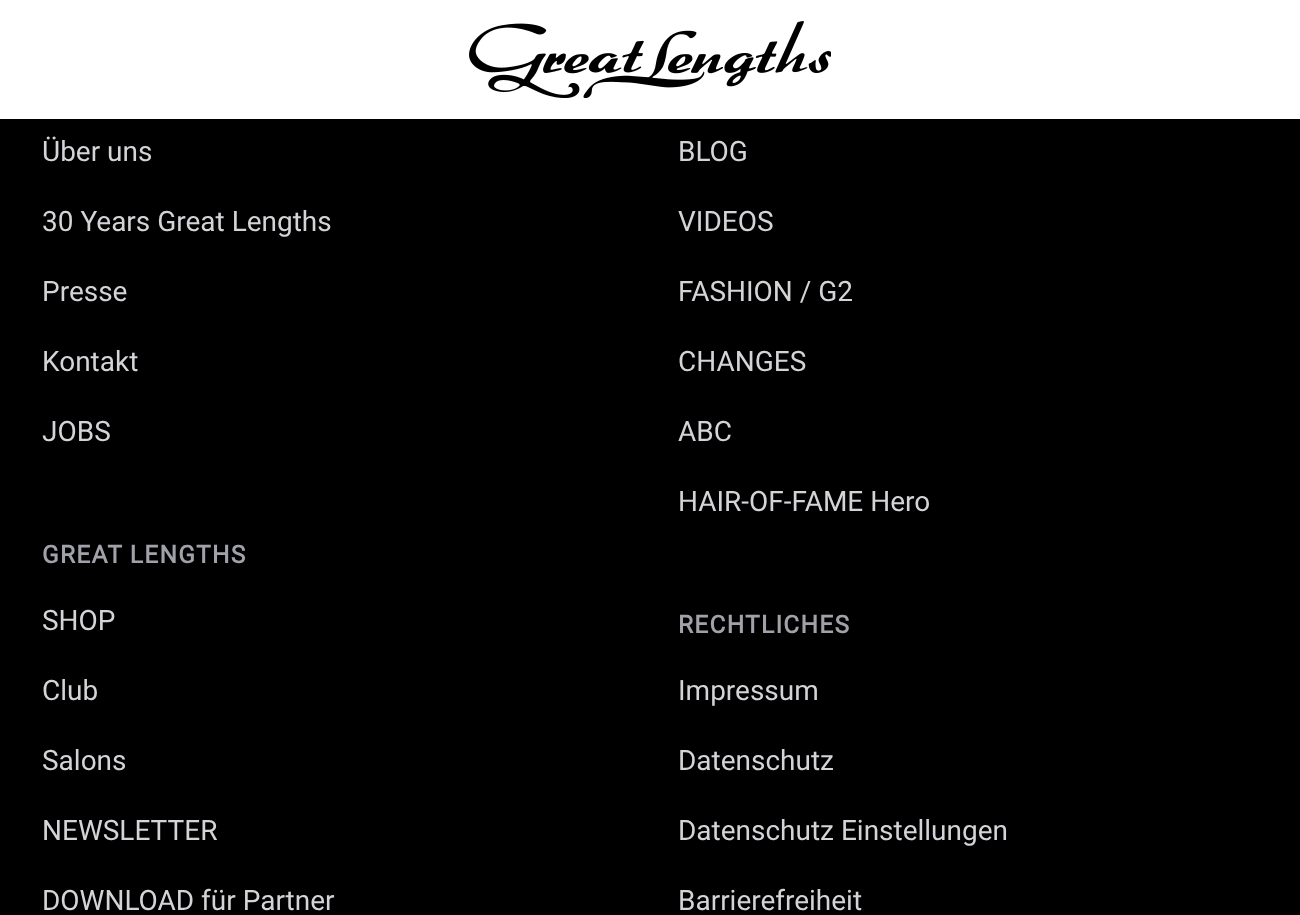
<!DOCTYPE html>
<meta charset="utf-8">
<style>body { margin: 0 } canvas { display: block }</style>
<canvas id="canvas" width="1300" height="915"></canvas>
<img id="img1" src="img_01.png" hidden>
<script>
window.onload = function () {
	const canvas = document.getElementById("canvas");
	const ctx = canvas.getContext("2d");
	ctx.miterLimit = 4;
	ctx.fontKerning = "normal";
	function txt(s, x, y) {
		ctx.fillText(s, x, y);
	}
	function fill(x, y, w, h) {
		ctx.fillRect(x, y, w, h);
	}
	function img(id, x, y, w, h) {
		ctx.drawImage(document.getElementById(id), x, y, w, h);
	}

	ctx.fillStyle = "#000000";
	fill(0, 0, 1300, 915);
	ctx.fillStyle = "#FFFFFF";
	fill(0, 0, 1300, 119);
	img("img1", 469, 21, 362, 77);
	ctx.font = "28px Roboto";
	ctx.fillStyle = "#D4D4D8";
	txt("Über uns", 42, 161);
	txt("30 Years Great Lengths", 42, 231);
	txt("Presse", 42, 301);
	txt("Kontakt", 42, 371);
	txt("JOBS", 42, 441);
	ctx.letterSpacing = "1.25px";
	ctx.font = "bold 24.5px Roboto";
	ctx.fillStyle = "#A1A1AA";
	txt("GREAT LENGTHS", 42, 563);
	ctx.letterSpacing = "0px";
	ctx.font = "28px Roboto";
	ctx.fillStyle = "#D4D4D8";
	txt("SHOP", 42, 630);
	txt("Club", 42, 700);
	txt("Salons", 42, 770);
	txt("NEWSLETTER", 42, 840);
	txt("DOWNLOAD für Partner", 42, 910);
	txt("BLOG", 678, 161);
	txt("VIDEOS", 678, 231);
	txt("FASHION / G2", 678, 301);
	txt("CHANGES", 678, 371);
	txt("ABC", 678, 441);
	txt("HAIR-OF-FAME Hero", 678, 511);
	ctx.letterSpacing = "1.25px";
	ctx.font = "bold 24.5px Roboto";
	ctx.fillStyle = "#A1A1AA";
	txt("RECHTLICHES", 678, 633);
	ctx.letterSpacing = "0px";
	ctx.font = "28px Roboto";
	ctx.fillStyle = "#D4D4D8";
	txt("Impressum", 678, 700);
	txt("Datenschutz", 678, 770);
	txt("Datenschutz Einstellungen", 678, 840);
	txt("Barrierefreiheit", 678, 910);
};
</script>
